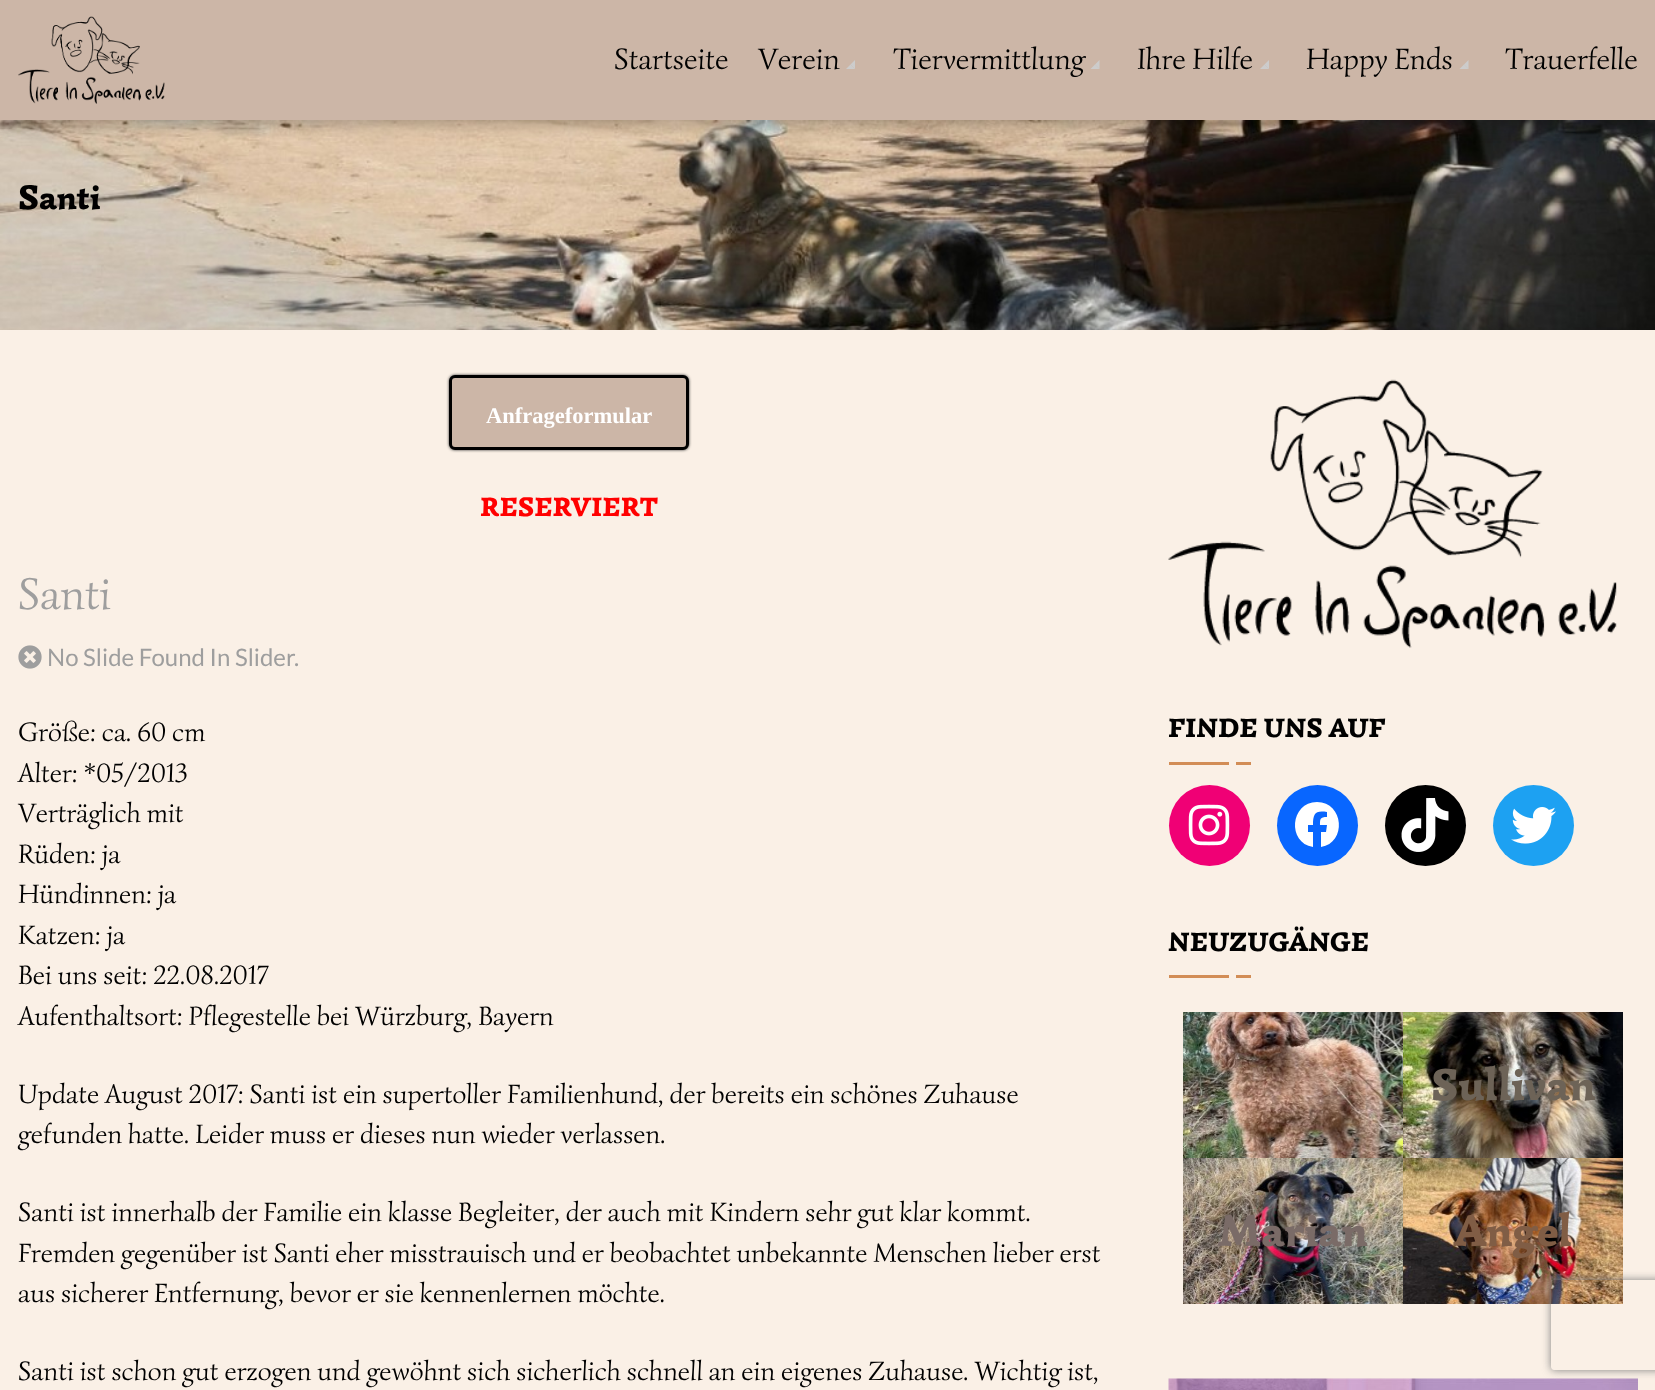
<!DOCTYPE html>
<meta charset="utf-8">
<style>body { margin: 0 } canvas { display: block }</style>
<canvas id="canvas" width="1655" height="1390"></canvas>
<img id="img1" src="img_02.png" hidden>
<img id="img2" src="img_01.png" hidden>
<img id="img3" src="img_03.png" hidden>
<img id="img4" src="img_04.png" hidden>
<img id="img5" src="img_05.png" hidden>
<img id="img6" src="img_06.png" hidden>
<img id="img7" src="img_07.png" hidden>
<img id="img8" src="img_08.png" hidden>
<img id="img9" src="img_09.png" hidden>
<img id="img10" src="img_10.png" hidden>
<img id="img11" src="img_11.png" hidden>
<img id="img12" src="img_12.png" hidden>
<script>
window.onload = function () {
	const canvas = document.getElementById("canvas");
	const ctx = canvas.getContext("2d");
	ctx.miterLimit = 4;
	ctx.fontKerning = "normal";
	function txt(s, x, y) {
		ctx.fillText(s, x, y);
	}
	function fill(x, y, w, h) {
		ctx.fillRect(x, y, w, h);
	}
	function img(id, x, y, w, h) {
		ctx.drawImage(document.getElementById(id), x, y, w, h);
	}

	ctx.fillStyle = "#FAF0E6";
	fill(0, 0, 1655, 1390);
	img("img1", 0, 120, 1655, 210);
	ctx.fillStyle = "rgba(0, 0, 0, 0.3)";
	ctx.filter = "blur(9px)";
	ctx.beginPath();
	ctx.rect(0, 3, 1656, 120);
	ctx.fill();
	ctx.filter = "none";
	ctx.fillStyle = "#CCB6A7";
	fill(0, 0, 1655, 120);
	img("img2", 18, 16, 147, 88);
	ctx.fillStyle = "#CCCCCC";
	ctx.beginPath();
	ctx.moveTo(855, 60);
	ctx.lineTo(855, 69);
	ctx.lineTo(850.5, 64.5);
	ctx.closePath();
	ctx.fill();
	ctx.beginPath();
	ctx.moveTo(855, 69);
	ctx.lineTo(846, 69);
	ctx.lineTo(850.5, 64.5);
	ctx.closePath();
	ctx.fill();
	ctx.beginPath();
	ctx.moveTo(1099.5, 60);
	ctx.lineTo(1099.5, 69);
	ctx.lineTo(1095, 64.5);
	ctx.closePath();
	ctx.fill();
	ctx.beginPath();
	ctx.moveTo(1099.5, 69);
	ctx.lineTo(1090.5, 69);
	ctx.lineTo(1095, 64.5);
	ctx.closePath();
	ctx.fill();
	ctx.beginPath();
	ctx.moveTo(1269, 60);
	ctx.lineTo(1269, 69);
	ctx.lineTo(1264.5, 64.5);
	ctx.closePath();
	ctx.fill();
	ctx.beginPath();
	ctx.moveTo(1269, 69);
	ctx.lineTo(1260, 69);
	ctx.lineTo(1264.5, 64.5);
	ctx.closePath();
	ctx.fill();
	ctx.beginPath();
	ctx.moveTo(1468.5, 60);
	ctx.lineTo(1468.5, 69);
	ctx.lineTo(1464, 64.5);
	ctx.closePath();
	ctx.fill();
	ctx.beginPath();
	ctx.moveTo(1468.5, 69);
	ctx.lineTo(1459.5, 69);
	ctx.lineTo(1464, 64.5);
	ctx.closePath();
	ctx.fill();
	ctx.fillStyle = "#333333";
	ctx.filter = "blur(1.5px)";
	ctx.beginPath();
	ctx.roundRect(449, 375, 240, 75, 6);
	ctx.fill();
	ctx.filter = "none";
	ctx.fillStyle = "#CCB6A7";
	ctx.beginPath();
	ctx.roundRect(450.5, 376.5, 237, 72, 4.5);
	ctx.fill();
	ctx.strokeStyle = "#000000";
	ctx.lineWidth = 3;
	ctx.stroke();
	img("img3", 18, 645, 24, 24);
	img("img4", 1168, 379, 449, 269);
	ctx.fillStyle = "#D28D56";
	fill(1169, 762, 60, 3);
	fill(1236, 762, 15, 3);
	ctx.fillStyle = "#F00075";
	ctx.beginPath();
	ctx.arc(1209.5, 825.5, 40.5, 0, Math.PI * 2);
	ctx.fill();
	img("img5", 1188, 804, 42, 42);
	ctx.fillStyle = "#0866FF";
	ctx.beginPath();
	ctx.arc(1317.5, 825.5, 40.5, 0, Math.PI * 2);
	ctx.fill();
	ctx.fillStyle = "#FFFFFF";
	ctx.beginPath();
	ctx.moveTo(1317, 802);
	ctx.bezierCurveTo(1290, 802, 1287, 843, 1313, 847);
	ctx.lineTo(1313, 832);
	ctx.lineTo(1308, 832);
	ctx.lineTo(1308, 825);
	ctx.lineTo(1313, 825);
	ctx.bezierCurveTo(1313, 814, 1315, 810, 1327, 812);
	ctx.lineTo(1327, 817);
	ctx.bezierCurveTo(1320, 817, 1320, 819, 1320, 825);
	ctx.lineTo(1327, 825);
	ctx.lineTo(1326, 832);
	ctx.lineTo(1321, 832);
	ctx.lineTo(1321, 847);
	ctx.bezierCurveTo(1347, 843, 1344, 802, 1317, 802);
	ctx.closePath();
	ctx.fill();
	ctx.fillStyle = "#000000";
	ctx.beginPath();
	ctx.arc(1425.5, 825.5, 40.5, 0, Math.PI * 2);
	ctx.fill();
	img("img6", 1401, 798, 48, 54);
	ctx.fillStyle = "#1DA1F2";
	ctx.beginPath();
	ctx.arc(1533.5, 825.5, 40.5, 0, Math.PI * 2);
	ctx.fill();
	img("img7", 1511, 807, 45, 37);
	ctx.fillStyle = "#D28D56";
	fill(1169, 975, 60, 3);
	fill(1236, 975, 15, 3);
	img("img8", 1183, 1012, 220, 146);
	img("img9", 1403, 1012, 220, 146);
	img("img10", 1183, 1158, 220, 146);
	img("img11", 1403, 1158, 220, 146);
	img("img12", 1168, 1378, 470, 12);
	ctx.save();
	ctx.beginPath();
	ctx.moveTo(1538, 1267);
	ctx.lineTo(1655, 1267);
	ctx.lineTo(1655, 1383);
	ctx.lineTo(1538, 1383);
	ctx.closePath();
	ctx.moveTo(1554, 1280);
	ctx.lineTo(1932, 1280);
	ctx.bezierCurveTo(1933.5, 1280, 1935, 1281.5, 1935, 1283);
	ctx.lineTo(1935, 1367);
	ctx.bezierCurveTo(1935, 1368.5, 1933.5, 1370, 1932, 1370);
	ctx.lineTo(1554, 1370);
	ctx.bezierCurveTo(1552.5, 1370, 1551, 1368.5, 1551, 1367);
	ctx.lineTo(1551, 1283);
	ctx.bezierCurveTo(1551, 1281.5, 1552.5, 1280, 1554, 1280);
	ctx.closePath();
	ctx.clip("evenodd");
	ctx.fillStyle = "#808080";
	ctx.filter = "blur(4px)";
	ctx.beginPath();
	ctx.roundRect(1551, 1280, 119, 90, 3);
	ctx.fill();
	ctx.filter = "none";
	ctx.restore();
	ctx.font = "30px Simonetta";
	ctx.fillStyle = "#000000";
	txt("Startseite", 614, 69);
	txt("Verein", 758, 69);
	txt("Tiervermittlung", 893, 69);
	txt("Ihre Hilfe", 1137, 69);
	txt("Happy Ends", 1306, 69);
	txt("Trauerfelle", 1505, 69);
	ctx.font = "900 34.5px Simonetta";
	txt("Santi", 18, 209);
	ctx.font = "bold 22.5px Liberation Serif";
	ctx.fillStyle = "#FFFFFF";
	txt("Anfrageformular", 486, 423);
	ctx.font = "900 27px Simonetta";
	ctx.fillStyle = "#FF0000";
	txt("RESERVIERT", 480, 516);
	ctx.font = "45px Simonetta";
	ctx.fillStyle = "#9E9E9E";
	txt("Santi", 18, 609);
	ctx.font = "24px Lato";
	txt("No Slide Found In Slider.", 47, 666);
	ctx.font = "27px Simonetta";
	ctx.fillStyle = "#000000";
	txt("Größe: ca. 60 cm", 18, 741);
	txt("Alter: *05/2013", 18, 782);
	txt("Verträglich mit", 18, 822);
	txt("Rüden: ja", 18, 863);
	txt("Hündinnen: ja", 18, 903);
	txt("Katzen: ja", 18, 944);
	txt("Bei uns seit: 22.08.2017", 18, 984);
	txt("Aufenthaltsort: Pflegestelle bei Würzburg, Bayern", 18, 1025);
	txt("Update August 2017: Santi ist ein supertoller Familienhund, der bereits ein schönes Zuhause", 18, 1103);
	txt("gefunden hatte. Leider muss er dieses nun wieder verlassen.", 18, 1143);
	txt("Santi ist innerhalb der Familie ein klasse Begleiter, der auch mit Kindern sehr gut klar kommt.", 18, 1221);
	txt("Fremden gegenüber ist Santi eher misstrauisch und er beobachtet unbekannte Menschen lieber erst", 18, 1262);
	txt("aus sicherer Entfernung, bevor er sie kennenlernen möchte.", 18, 1302);
	txt("Santi ist schon gut erzogen und gewöhnt sich sicherlich schnell an ein eigenes Zuhause. Wichtig ist,", 18, 1380);
	ctx.font = "900 27px Simonetta";
	txt("FINDE UNS AUF", 1168, 737);
	txt("NEUZUGÄNGE", 1168, 951);
	ctx.font = "900 45px Simonetta";
	ctx.fillStyle = "#6D6357";
	txt("Sullivan", 1431, 1100);
	ctx.fillStyle = "#7A6B67";
	txt("Marian", 1218, 1246);
	ctx.fillStyle = "#805D45";
	txt("Angel", 1454, 1246);
};
</script>
